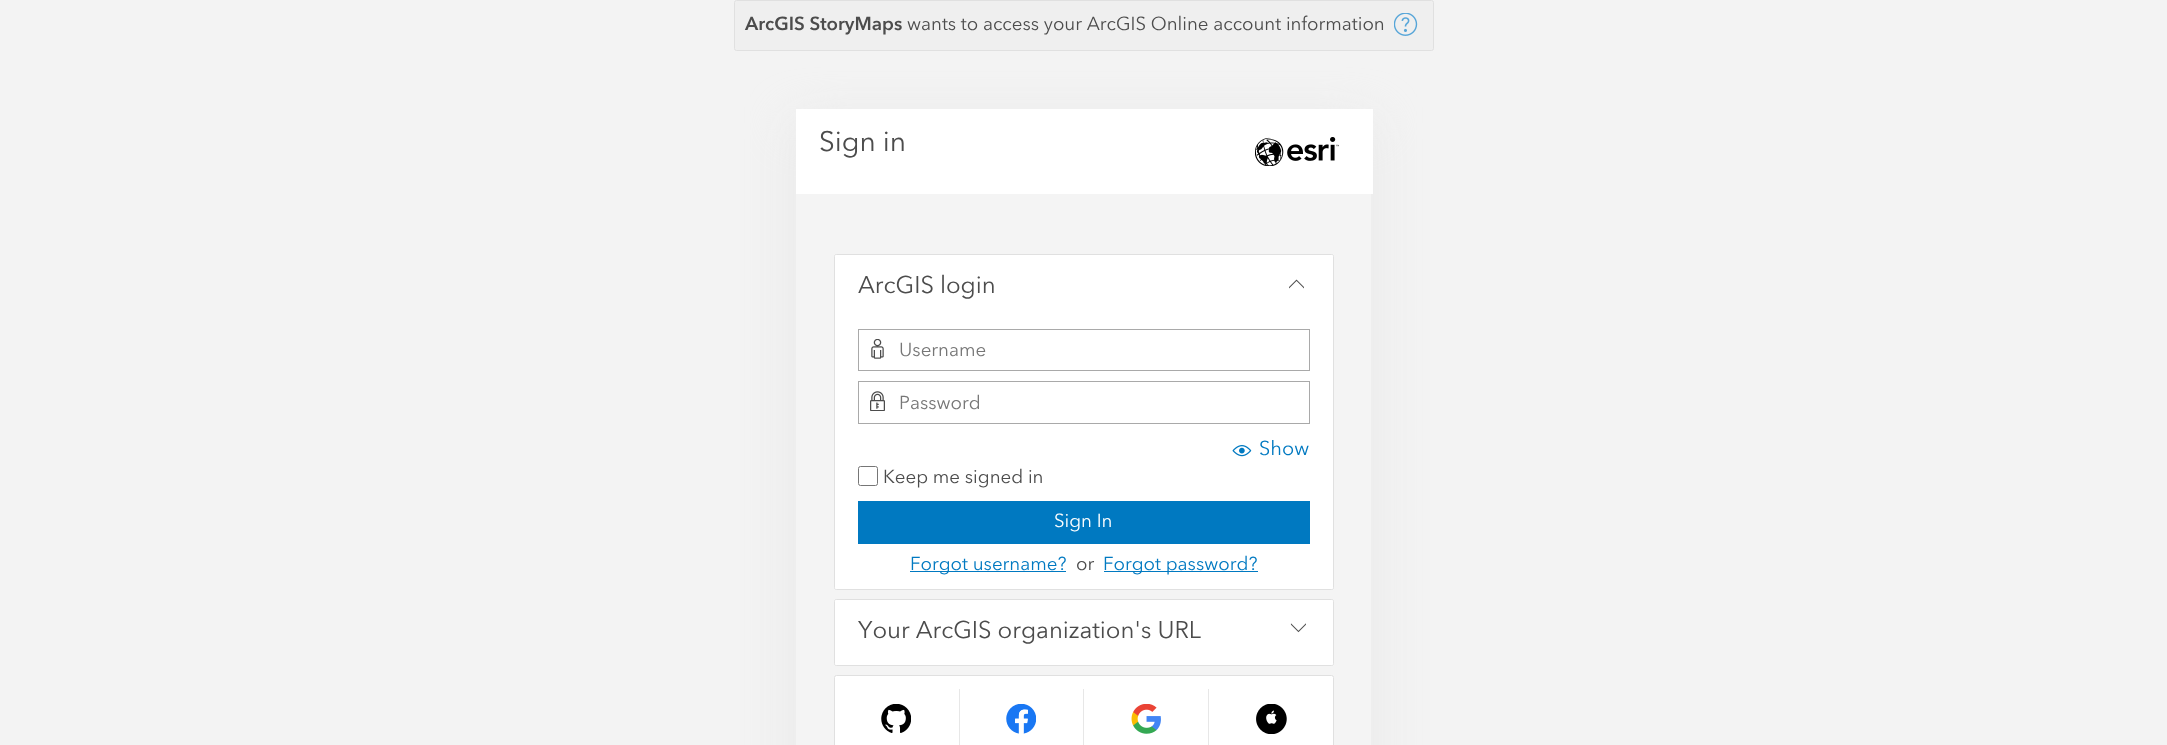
<!DOCTYPE html>
<meta charset="utf-8">
<style>body { margin: 0 } canvas { display: block }</style>
<canvas id="canvas" width="2167" height="745"></canvas>
<img id="img1" src="img_01.png" hidden>
<img id="img2" src="img_02.png" hidden>
<img id="img3" src="img_03.png" hidden>
<img id="img4" src="img_04.png" hidden>
<img id="img5" src="img_05.png" hidden>
<img id="img6" src="img_06.png" hidden>
<img id="img7" src="img_07.png" hidden>
<img id="img8" src="img_08.png" hidden>
<img id="img9" src="img_09.png" hidden>
<img id="img10" src="img_10.png" hidden>
<img id="img11" src="img_11.png" hidden>
<script>
window.onload = function () {
	const canvas = document.getElementById("canvas");
	const ctx = canvas.getContext("2d");
	ctx.miterLimit = 4;
	ctx.fontKerning = "normal";
	function txt(s, x, y) {
		ctx.fillText(s, x, y);
	}
	function fill(x, y, w, h) {
		ctx.fillRect(x, y, w, h);
	}
	function round(x, y, w, h, r) {
		ctx.beginPath();
		ctx.roundRect(x, y, w, h, r);
		ctx.fill();
	}
	function img(id, x, y, w, h) {
		ctx.drawImage(document.getElementById(id), x, y, w, h);
	}

	ctx.fillStyle = "#F3F3F3";
	fill(0, 0, 2167, 745);
	ctx.fillStyle = "#EFEFEF";
	ctx.beginPath();
	ctx.roundRect(734.5, 0.5, 699, 50, 2);
	ctx.fill();
	ctx.strokeStyle = "#E0E0E0";
	ctx.stroke();
	img("img1", 1394, 13, 24, 23);
	ctx.fillStyle = "#E7E7E7";
	ctx.filter = "blur(23.5px)";
	ctx.beginPath();
	ctx.rect(796, 123, 575, 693);
	ctx.fill();
	ctx.filter = "none";
	ctx.fillStyle = "#F4F4F4";
	fill(796, 194, 575, 551);
	ctx.fillStyle = "#FFFFFF";
	fill(796, 109, 577, 85);
	img("img2", 1255, 137, 84, 29);
	ctx.beginPath();
	ctx.roundRect(834.5, 254.5, 499, 335, 2);
	ctx.stroke();
	round(835, 255, 498, 334, 1);
	img("img3", 1289, 279, 15, 10);
	ctx.strokeStyle = "#A9A9A9";
	ctx.strokeRect(858.5, 329.5, 451, 41);
	img("img4", 871, 339, 13, 20);
	ctx.strokeRect(858.5, 381.5, 451, 42);
	img("img5", 870, 391, 15, 20);
	img("img6", 1232, 445, 20, 12);
	ctx.beginPath();
	ctx.roundRect(858.5, 466.5, 19, 19, 2);
	ctx.strokeStyle = "#767676";
	ctx.stroke();
	ctx.fillStyle = "#0079C1";
	fill(858, 501, 452, 43);
	fill(910, 571, 156, 1);
	fill(1104, 571, 154, 1);
	ctx.beginPath();
	ctx.roundRect(834.5, 599.5, 499, 66, 2);
	ctx.strokeStyle = "#E0E0E0";
	ctx.stroke();
	ctx.fillStyle = "#FFFFFF";
	round(835, 600, 498, 65, 1);
	img("img7", 1290, 623, 16, 10);
	ctx.beginPath();
	ctx.roundRect(834.5, 675.5, 499, 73, 2);
	ctx.fill();
	ctx.stroke();
	img("img8", 881, 704, 30, 29);
	ctx.fillStyle = "#E7E7E7";
	fill(959, 689, 1, 56);
	img("img9", 1006, 704, 30, 30);
	fill(1083, 689, 1, 56);
	img("img10", 1131, 704, 30, 30);
	fill(1208, 689, 1, 56);
	img("img11", 1256, 704, 31, 30);
	ctx.font = "600 18.75px Avenir Next";
	ctx.fillStyle = "#4C4C4C";
	txt("ArcGIS StoryMaps", 745, 30);
	ctx.font = "18.75px Avenir Next";
	txt("wants to access your ArcGIS Online account information", 907, 30);
	ctx.font = "28px Avenir Next";
	txt("Sign in", 819, 151);
	ctx.font = "24px Avenir Next";
	txt("ArcGIS login", 858, 293);
	ctx.font = "18.75px Avenir Next";
	ctx.fillStyle = "#767676";
	txt("Username", 899, 356);
	txt("Password", 899, 409);
	ctx.font = "20px Avenir Next";
	ctx.fillStyle = "#0079C1";
	txt("Show", 1259, 455);
	ctx.font = "18.75px Avenir Next";
	ctx.fillStyle = "#4C4C4C";
	txt("Keep me signed in", 883, 483);
	ctx.fillStyle = "#FFFFFF";
	txt("Sign In", 1054, 527);
	ctx.fillStyle = "#0079C1";
	txt("Forgot username?", 910, 570);
	ctx.fillStyle = "#4C4C4C";
	txt("or", 1076, 570);
	ctx.fillStyle = "#0079C1";
	txt("Forgot password?", 1103, 570);
	ctx.font = "24px Avenir Next";
	ctx.fillStyle = "#4C4C4C";
	txt("Your ArcGIS organization's URL", 858, 638);
};
</script>
